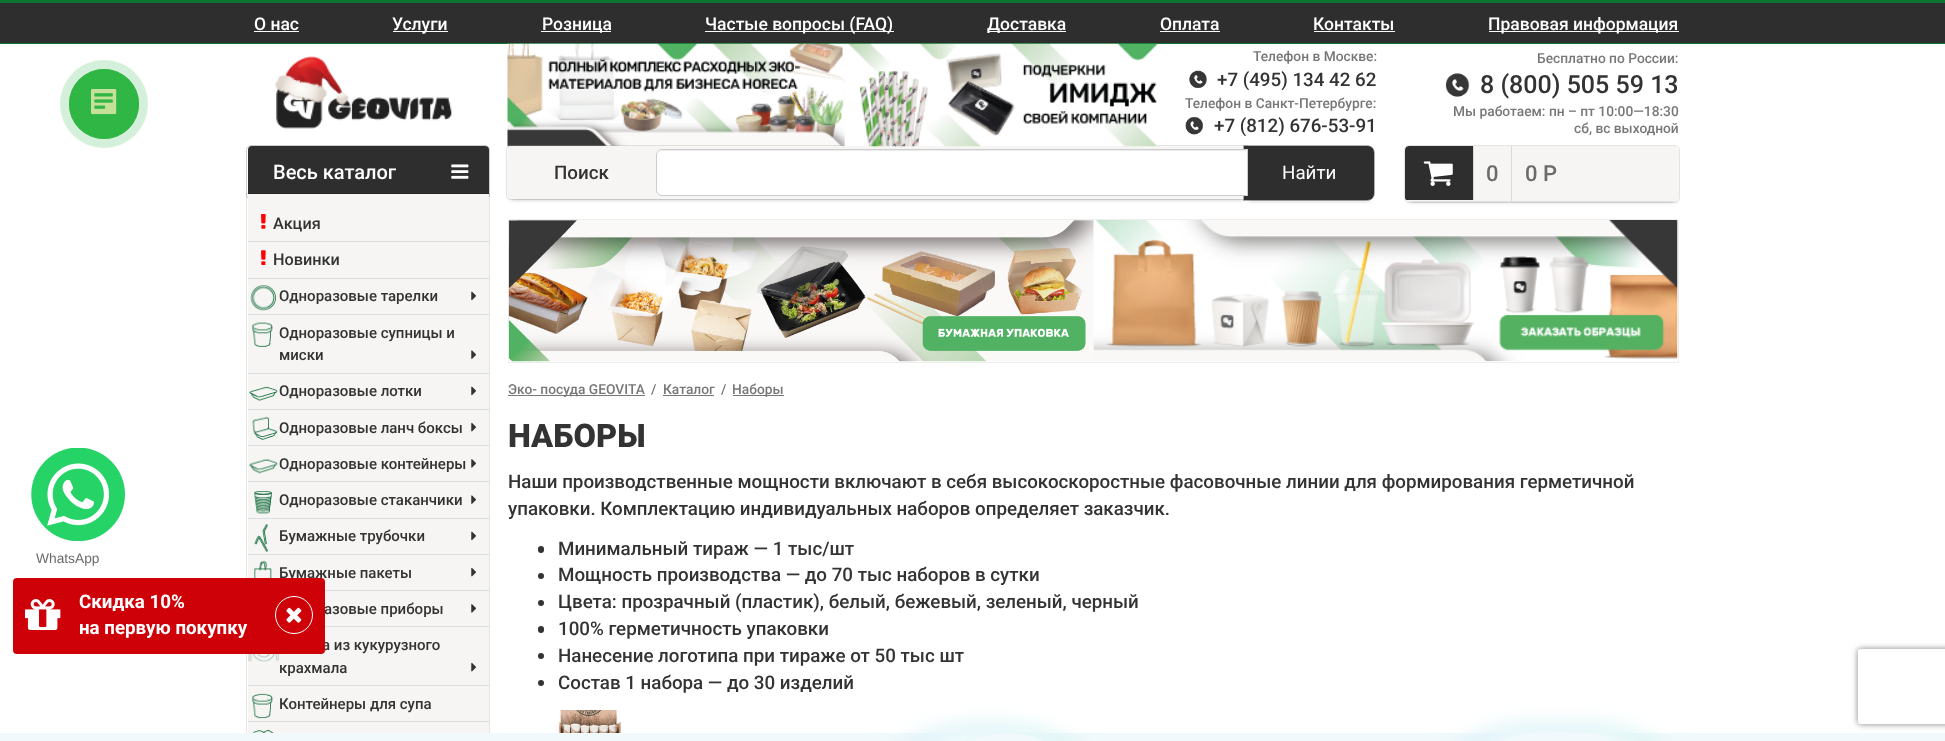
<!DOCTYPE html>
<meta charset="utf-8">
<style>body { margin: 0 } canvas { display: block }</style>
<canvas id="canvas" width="1945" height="741"></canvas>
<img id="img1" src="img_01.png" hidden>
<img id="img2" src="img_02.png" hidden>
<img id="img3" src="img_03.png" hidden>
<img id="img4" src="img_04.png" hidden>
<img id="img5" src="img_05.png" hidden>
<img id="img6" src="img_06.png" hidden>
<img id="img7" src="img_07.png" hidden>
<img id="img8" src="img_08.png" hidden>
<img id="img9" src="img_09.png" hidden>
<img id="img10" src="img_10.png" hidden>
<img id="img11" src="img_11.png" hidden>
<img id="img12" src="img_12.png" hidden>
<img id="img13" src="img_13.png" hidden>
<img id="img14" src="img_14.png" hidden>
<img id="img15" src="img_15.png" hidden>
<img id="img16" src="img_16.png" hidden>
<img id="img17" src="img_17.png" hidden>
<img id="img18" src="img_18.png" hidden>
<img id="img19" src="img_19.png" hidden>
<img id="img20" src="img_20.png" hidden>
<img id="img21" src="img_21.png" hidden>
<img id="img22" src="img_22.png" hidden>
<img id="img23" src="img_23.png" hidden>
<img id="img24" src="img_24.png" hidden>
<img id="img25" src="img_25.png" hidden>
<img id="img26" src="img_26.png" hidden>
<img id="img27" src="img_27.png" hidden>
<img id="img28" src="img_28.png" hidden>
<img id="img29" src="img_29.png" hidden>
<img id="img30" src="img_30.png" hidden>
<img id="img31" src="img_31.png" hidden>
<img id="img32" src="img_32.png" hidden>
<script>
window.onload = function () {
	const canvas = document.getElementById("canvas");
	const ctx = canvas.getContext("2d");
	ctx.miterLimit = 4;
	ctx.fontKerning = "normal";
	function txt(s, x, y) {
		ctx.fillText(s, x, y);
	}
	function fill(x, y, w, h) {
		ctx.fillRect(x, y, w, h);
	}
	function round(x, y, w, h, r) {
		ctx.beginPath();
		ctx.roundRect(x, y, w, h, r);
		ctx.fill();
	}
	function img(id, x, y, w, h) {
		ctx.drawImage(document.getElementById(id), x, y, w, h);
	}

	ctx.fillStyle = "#FFFFFF";
	fill(0, 0, 1945, 741);
	ctx.fillStyle = "#2E2E2E";
	fill(0, 3, 1945, 40);
	ctx.fillStyle = "#0E7532";
	fill(0, 0, 1945, 3);
	fill(0, 43, 1945, 1);
	ctx.fillStyle = "#FFFFFF";
	fill(254, 31, 45, 1);
	fill(393, 31, 55, 1);
	fill(541, 31, 70, 1);
	fill(705, 31, 189, 1);
	fill(988, 31, 78, 1);
	fill(1160, 31, 60, 1);
	fill(1314, 31, 81, 1);
	fill(1489, 31, 190, 1);
	ctx.fillStyle = "#D5F0DA";
	ctx.beginPath();
	ctx.arc(104, 104, 44, 0, Math.PI * 2);
	ctx.fill();
	ctx.beginPath();
	ctx.arc(104, 104, 34.5, 0, Math.PI * 2);
	ctx.strokeStyle = "#2FB644";
	ctx.stroke();
	ctx.fillStyle = "#2FB644";
	ctx.beginPath();
	ctx.arc(104, 104, 35, 0, Math.PI * 2);
	ctx.fill();
	img("img1", 91, 89, 26, 26);
	img("img2", 275, 56, 177, 73);
	img("img3", 507, 43, 338, 104);
	ctx.fillStyle = "rgba(0, 0, 0, 0.3)";
	ctx.filter = "blur(2.5px)";
	ctx.beginPath();
	ctx.rect(511, 154, 732, 45);
	ctx.fill();
	ctx.filter = "none";
	ctx.beginPath();
	ctx.roundRect(506.5, 145.5, 741, 54, [4.5, 0, 0, 4.5]);
	ctx.strokeStyle = "rgba(0, 0, 0, 0.1)";
	ctx.stroke();
	ctx.fillStyle = "#F6F5F3";
	ctx.beginPath();
	ctx.roundRect(508, 146, 738, 53, [4, 0, 0, 4]);
	ctx.fill();
	img("img4", 845, 43, 313, 104);
	img("img5", 1189, 70, 18, 18);
	img("img6", 1185, 117, 18, 18);
	img("img7", 1445, 73, 25, 24);
	ctx.beginPath();
	ctx.roundRect(246.5, 145.5, 243, 54, 4.5);
	ctx.stroke();
	ctx.beginPath();
	ctx.roundRect(246.5, 145.5, 243, 54, 4.5);
	ctx.stroke();
	ctx.fillStyle = "#2E2E2E";
	round(248, 146, 241, 53, 4);
	img("img8", 451, 164, 18, 15);
	ctx.fillStyle = "rgba(0, 0, 0, 0.3)";
	ctx.filter = "blur(2.5px)";
	ctx.beginPath();
	ctx.roundRect(1248, 154, 122, 46, 2.5);
	ctx.fill();
	ctx.filter = "none";
	ctx.beginPath();
	ctx.roundRect(1243.5, 145.5, 131, 55, [0, 7.5, 7.5, 0]);
	ctx.strokeStyle = "rgba(0, 0, 0, 0.3)";
	ctx.stroke();
	ctx.fillStyle = "#2E2E2E";
	ctx.beginPath();
	ctx.roundRect(1244, 146, 130, 54, [0, 6, 6, 0]);
	ctx.fill();
	ctx.fillStyle = "#FFFFFF";
	ctx.beginPath();
	ctx.roundRect(656, 149, 592, 47, [6, 0, 0, 6]);
	ctx.fill();
	ctx.fillStyle = "#ECECEC";
	ctx.beginPath();
	ctx.moveTo(662, 151);
	ctx.lineTo(1246, 151);
	ctx.lineTo(1246, 150);
	ctx.lineTo(663, 150);
	ctx.bezierCurveTo(660, 150, 658, 153, 658, 156);
	ctx.bezierCurveTo(658, 153, 660, 151, 662, 151);
	ctx.closePath();
	ctx.fill();
	ctx.beginPath();
	ctx.roundRect(656.5, 149.5, 591, 46, [5.5, 0, 0, 5.5]);
	ctx.strokeStyle = "#CCCCCC";
	ctx.stroke();
	ctx.fillStyle = "rgba(0, 0, 0, 0.3)";
	ctx.filter = "blur(2.5px)";
	ctx.beginPath();
	ctx.rect(1409, 154, 266, 47);
	ctx.fill();
	ctx.filter = "none";
	ctx.beginPath();
	ctx.roundRect(1404.5, 145.5, 275, 57, 4.5);
	ctx.strokeStyle = "rgba(0, 0, 0, 0.1)";
	ctx.stroke();
	ctx.fillStyle = "#F6F5F3";
	round(1405, 146, 274, 55, 4);
	ctx.save();
	ctx.beginPath();
	ctx.roundRect(1405, 146, 274, 55, 4);
	ctx.clip();
	ctx.fillStyle = "#2E2E2E";
	ctx.beginPath();
	ctx.roundRect(1405, 146, 69, 54, [4, 0, 0, 0]);
	ctx.fill();
	ctx.restore();
	ctx.fillStyle = "#DADADA";
	fill(1473, 146, 1, 54);
	img("img9", 1423, 161, 30, 25);
	fill(1511, 146, 1, 55);
	img("img10", 31, 448, 94, 93);
	ctx.strokeRect(246.5, 193.5, 243, 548);
	ctx.fillStyle = "#F6F5F3";
	fill(248, 194, 241, 539);
	ctx.fillStyle = "#DDDDDD";
	fill(248, 241, 241, 1);
	img("img11", 261, 214, 5, 15);
	fill(248, 278, 241, 1);
	img("img12", 261, 250, 5, 15);
	fill(248, 314, 241, 1);
	img("img13", 250, 285, 26, 26);
	img("img14", 471, 291, 5, 10);
	fill(248, 373, 241, 1);
	img("img15", 252, 322, 21, 25);
	img("img16", 471, 350, 5, 9);
	fill(248, 409, 241, 1);
	img("img17", 249, 386, 29, 15);
	img("img14", 471, 386, 5, 10);
	fill(248, 445, 241, 1);
	img("img18", 252, 416, 26, 24);
	img("img19", 471, 422, 5, 10);
	fill(248, 481, 241, 1);
	img("img20", 249, 458, 29, 16);
	img("img21", 471, 459, 5, 9);
	fill(248, 518, 241, 1);
	img("img22", 254, 491, 18, 23);
	img("img16", 471, 495, 5, 9);
	fill(248, 554, 241, 1);
	img("img23", 254, 524, 14, 28);
	img("img14", 471, 531, 5, 10);
	fill(325, 590, 164, 1);
	img("img24", 254, 560, 18, 18);
	img("img19", 471, 567, 5, 10);
	fill(325, 626, 164, 1);
	img("img21", 471, 604, 5, 9);
	fill(248, 685, 241, 1);
	img("img25", 248, 654, 31, 8);
	img("img19", 471, 662, 5, 10);
	fill(248, 721, 241, 1);
	img("img26", 252, 693, 21, 26);
	img("img27", 253, 729, 21, 4);
	ctx.strokeStyle = "#EEEEEE";
	ctx.strokeRect(508.5, 219.5, 1170, 143);
	img("img28", 508, 220, 586, 142);
	img("img29", 1093, 220, 585, 142);
	ctx.fillStyle = "#777777";
	fill(508, 395, 137, 1);
	fill(663, 395, 51, 1);
	fill(733, 395, 51, 1);
	ctx.fillStyle = "#333333";
	round(538, 546, 6, 7, 3);
	ctx.beginPath();
	ctx.arc(541, 576, 3, 0, Math.PI * 2);
	ctx.fill();
	ctx.beginPath();
	ctx.arc(541, 603, 3, 0, Math.PI * 2);
	ctx.fill();
	round(538, 626, 6, 7, 3);
	ctx.beginPath();
	ctx.arc(541, 656, 3, 0, Math.PI * 2);
	ctx.fill();
	ctx.beginPath();
	ctx.arc(541, 683, 3, 0, Math.PI * 2);
	ctx.fill();
	img("img30", 556, 710, 65, 23);
	ctx.save();
	ctx.beginPath();
	ctx.moveTo(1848, 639);
	ctx.lineTo(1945, 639);
	ctx.lineTo(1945, 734);
	ctx.lineTo(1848, 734);
	ctx.closePath();
	ctx.moveTo(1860.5, 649);
	ctx.lineTo(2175.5, 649);
	ctx.bezierCurveTo(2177, 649, 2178, 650, 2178, 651.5);
	ctx.lineTo(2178, 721.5);
	ctx.bezierCurveTo(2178, 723, 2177, 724, 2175.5, 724);
	ctx.lineTo(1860.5, 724);
	ctx.bezierCurveTo(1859, 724, 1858, 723, 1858, 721.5);
	ctx.lineTo(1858, 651.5);
	ctx.bezierCurveTo(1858, 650, 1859, 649, 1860.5, 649);
	ctx.closePath();
	ctx.clip("evenodd");
	ctx.fillStyle = "#808080";
	ctx.filter = "blur(3px)";
	ctx.beginPath();
	ctx.roundRect(1858, 649, 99, 75, 2.5);
	ctx.fill();
	ctx.filter = "none";
	ctx.restore();
	ctx.fillStyle = "#F1F9FC";
	fill(0, 733, 1945, 8);
	ctx.save();
	ctx.beginPath();
	ctx.moveTo(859, 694);
	ctx.lineTo(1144, 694);
	ctx.lineTo(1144, 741);
	ctx.lineTo(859, 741);
	ctx.closePath();
	ctx.moveTo(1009, 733);
	ctx.bezierCurveTo(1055.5, 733, 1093, 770.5, 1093, 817);
	ctx.lineTo(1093, 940);
	ctx.lineTo(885, 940);
	ctx.lineTo(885, 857);
	ctx.bezierCurveTo(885, 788.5, 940.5, 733, 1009, 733);
	ctx.closePath();
	ctx.clip("evenodd");
	ctx.fillStyle = "#C5F2ED";
	ctx.filter = "blur(12.5px)";
	ctx.beginPath();
	ctx.roundRect(898, 733, 207, 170, 124);
	ctx.fill();
	ctx.filter = "none";
	ctx.restore();
	ctx.save();
	ctx.beginPath();
	ctx.moveTo(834, 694);
	ctx.lineTo(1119, 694);
	ctx.lineTo(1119, 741);
	ctx.lineTo(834, 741);
	ctx.closePath();
	ctx.moveTo(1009, 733);
	ctx.bezierCurveTo(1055.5, 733, 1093, 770.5, 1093, 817);
	ctx.lineTo(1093, 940);
	ctx.lineTo(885, 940);
	ctx.lineTo(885, 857);
	ctx.bezierCurveTo(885, 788.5, 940.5, 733, 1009, 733);
	ctx.closePath();
	ctx.clip("evenodd");
	ctx.fillStyle = "#C8EBF8";
	ctx.filter = "blur(12.5px)";
	ctx.beginPath();
	ctx.roundRect(873, 733, 207, 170, 124);
	ctx.fill();
	ctx.filter = "none";
	ctx.restore();
	ctx.save();
	ctx.beginPath();
	ctx.moveTo(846, 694);
	ctx.lineTo(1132, 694);
	ctx.lineTo(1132, 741);
	ctx.lineTo(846, 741);
	ctx.closePath();
	ctx.moveTo(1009, 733);
	ctx.bezierCurveTo(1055.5, 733, 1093, 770.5, 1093, 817);
	ctx.lineTo(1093, 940);
	ctx.lineTo(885, 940);
	ctx.lineTo(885, 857);
	ctx.bezierCurveTo(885, 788.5, 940.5, 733, 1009, 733);
	ctx.closePath();
	ctx.clip("evenodd");
	ctx.fillStyle = "#FFFFFF";
	ctx.filter = "blur(12.5px)";
	ctx.beginPath();
	ctx.roundRect(885, 733, 208, 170, 124);
	ctx.fill();
	ctx.filter = "none";
	ctx.restore();
	ctx.fillStyle = "#C5F2ED";
	ctx.filter = "blur(12.5px)";
	ctx.beginPath();
	ctx.roundRect(1469, 733, 206, 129, 83);
	ctx.fill();
	ctx.filter = "none";
	ctx.fillStyle = "#C8EBF8";
	ctx.filter = "blur(12.5px)";
	ctx.beginPath();
	ctx.roundRect(1444, 733, 206, 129, 83);
	ctx.fill();
	ctx.filter = "none";
	ctx.fillStyle = "#FFFFFF";
	ctx.filter = "blur(12.5px)";
	ctx.beginPath();
	ctx.roundRect(1456, 733, 207, 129, 83);
	ctx.fill();
	ctx.filter = "none";
	ctx.fillStyle = "#F1F9FC";
	ctx.beginPath();
	ctx.moveTo(1539, 733);
	ctx.lineTo(1580, 733);
	ctx.bezierCurveTo(1626, 733, 1663, 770, 1663, 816);
	ctx.lineTo(1663, 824);
	ctx.lineTo(1456, 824);
	ctx.lineTo(1456, 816);
	ctx.bezierCurveTo(1456, 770, 1493, 733, 1539, 733);
	ctx.closePath();
	ctx.fill();
	ctx.font = "500 17.5px Roboto";
	ctx.fillStyle = "#FFFFFF";
	txt("О нас", 254, 30);
	txt("Услуги", 392, 30);
	txt("Розница", 542, 30);
	txt("Частые вопросы (FAQ)", 705, 30);
	txt("Доставка", 987, 30);
	txt("Оплата", 1160, 30);
	txt("Контакты", 1313, 30);
	txt("Правовая информация", 1488, 30);
	ctx.font = "500 13.75px Roboto";
	ctx.fillStyle = "#777777";
	txt("Телефон в Москве:", 1253, 61);
	ctx.font = "500 18.75px Roboto";
	ctx.fillStyle = "#333333";
	txt("+7 (495) 134 42 62", 1217, 86);
	ctx.font = "500 13.75px Roboto";
	ctx.fillStyle = "#777777";
	txt("Телефон в Санкт-Петербурге:", 1185, 108);
	ctx.font = "500 18.75px Roboto";
	ctx.fillStyle = "#333333";
	txt("+7 (812) 676-53-91", 1214, 132);
	ctx.font = "500 13.75px Roboto";
	ctx.fillStyle = "#777777";
	txt("Бесплатно по России:", 1537, 63);
	ctx.font = "500 25px Roboto";
	ctx.fillStyle = "#333333";
	txt("8 (800) 505 59 13", 1480, 93);
	ctx.font = "500 13.75px Roboto";
	ctx.fillStyle = "#777777";
	txt("Мы работаем: пн – пт 10:00—18:30", 1453, 116);
	txt("сб, вс выходной", 1574, 133);
	ctx.font = "500 20px Roboto";
	ctx.fillStyle = "#FFFFFF";
	txt("Весь каталог", 273, 179);
	ctx.font = "500 18.75px Roboto";
	ctx.fillStyle = "#333333";
	txt("Поиск", 554, 179);
	ctx.font = "18.75px Roboto";
	ctx.fillStyle = "#FFFFFF";
	txt("Найти", 1282, 179);
	ctx.font = "500 22px Roboto";
	ctx.fillStyle = "#6B6B6B";
	txt("0", 1486, 181);
	txt("0 Р", 1525, 181);
	ctx.font = "13.75px Liberation Sans";
	txt("WhatsApp", 36, 563);
	ctx.font = "500 16.25px Roboto";
	ctx.fillStyle = "#333333";
	txt("Акция", 273, 229);
	txt("Новинки", 273, 265);
	ctx.font = "500 15px Roboto";
	txt("Одноразовые тарелки", 279, 301);
	txt("Одноразовые супницы и", 279, 338);
	txt("миски", 279, 360);
	txt("Одноразовые лотки", 279, 396);
	txt("Одноразовые ланч боксы", 279, 433);
	txt("Одноразовые контейнеры", 279, 469);
	txt("Одноразовые стаканчики", 279, 505);
	txt("Бумажные трубочки", 279, 541);
	txt("Бумажные пакеты", 279, 578);
	txt("азовые приборы", 324, 614);
	txt("а из кукурузного", 322, 650);
	txt("крахмала", 279, 673);
	txt("Контейнеры для супа", 279, 709);
	ctx.font = "500 13.75px Roboto";
	ctx.fillStyle = "#777777";
	txt("Эко- посуда GEOVITA", 508, 394);
	txt("/", 651, 394);
	txt("Каталог", 663, 394);
	txt("/", 721, 394);
	txt("Наборы", 732, 394);
	ctx.font = "900 32.5px Roboto";
	ctx.fillStyle = "#333333";
	txt("НАБОРЫ", 508, 447);
	ctx.font = "500 18.75px Roboto";
	txt("Наши производственные мощности включают в себя высокоскоростные фасовочные линии для формирования герметичной", 508, 488);
	txt("упаковки. Комплектацию индивидуальных наборов определяет заказчик.", 508, 515);
	txt("Минимальный тираж — 1 тыс/шт", 558, 555);
	txt("Мощность производства — до 70 тыс наборов в сутки", 558, 581);
	txt("Цвета: прозрачный (пластик), белый, бежевый, зеленый, черный", 558, 608);
	txt("100% герметичность упаковки", 558, 635);
	txt("Нанесение логотипа при тираже от 50 тыс шт", 558, 662);
	txt("Состав 1 набора — до 30 изделий", 558, 689);
	ctx.fillStyle = "#CE0108";
	round(13, 578, 312, 76, 4);
	img("img31", 25, 599, 36, 31);
	ctx.font = "bold 18.75px Roboto";
	ctx.fillStyle = "#FFFFFF";
	txt("Скидка 10%", 79, 608);
	txt("на первую покупку", 79, 634);
	ctx.beginPath();
	ctx.arc(294, 615, 18.5, 0, Math.PI * 2);
	ctx.strokeStyle = "#FFFFFF";
	ctx.stroke();
	img("img32", 286, 607, 16, 16);
};
</script>
